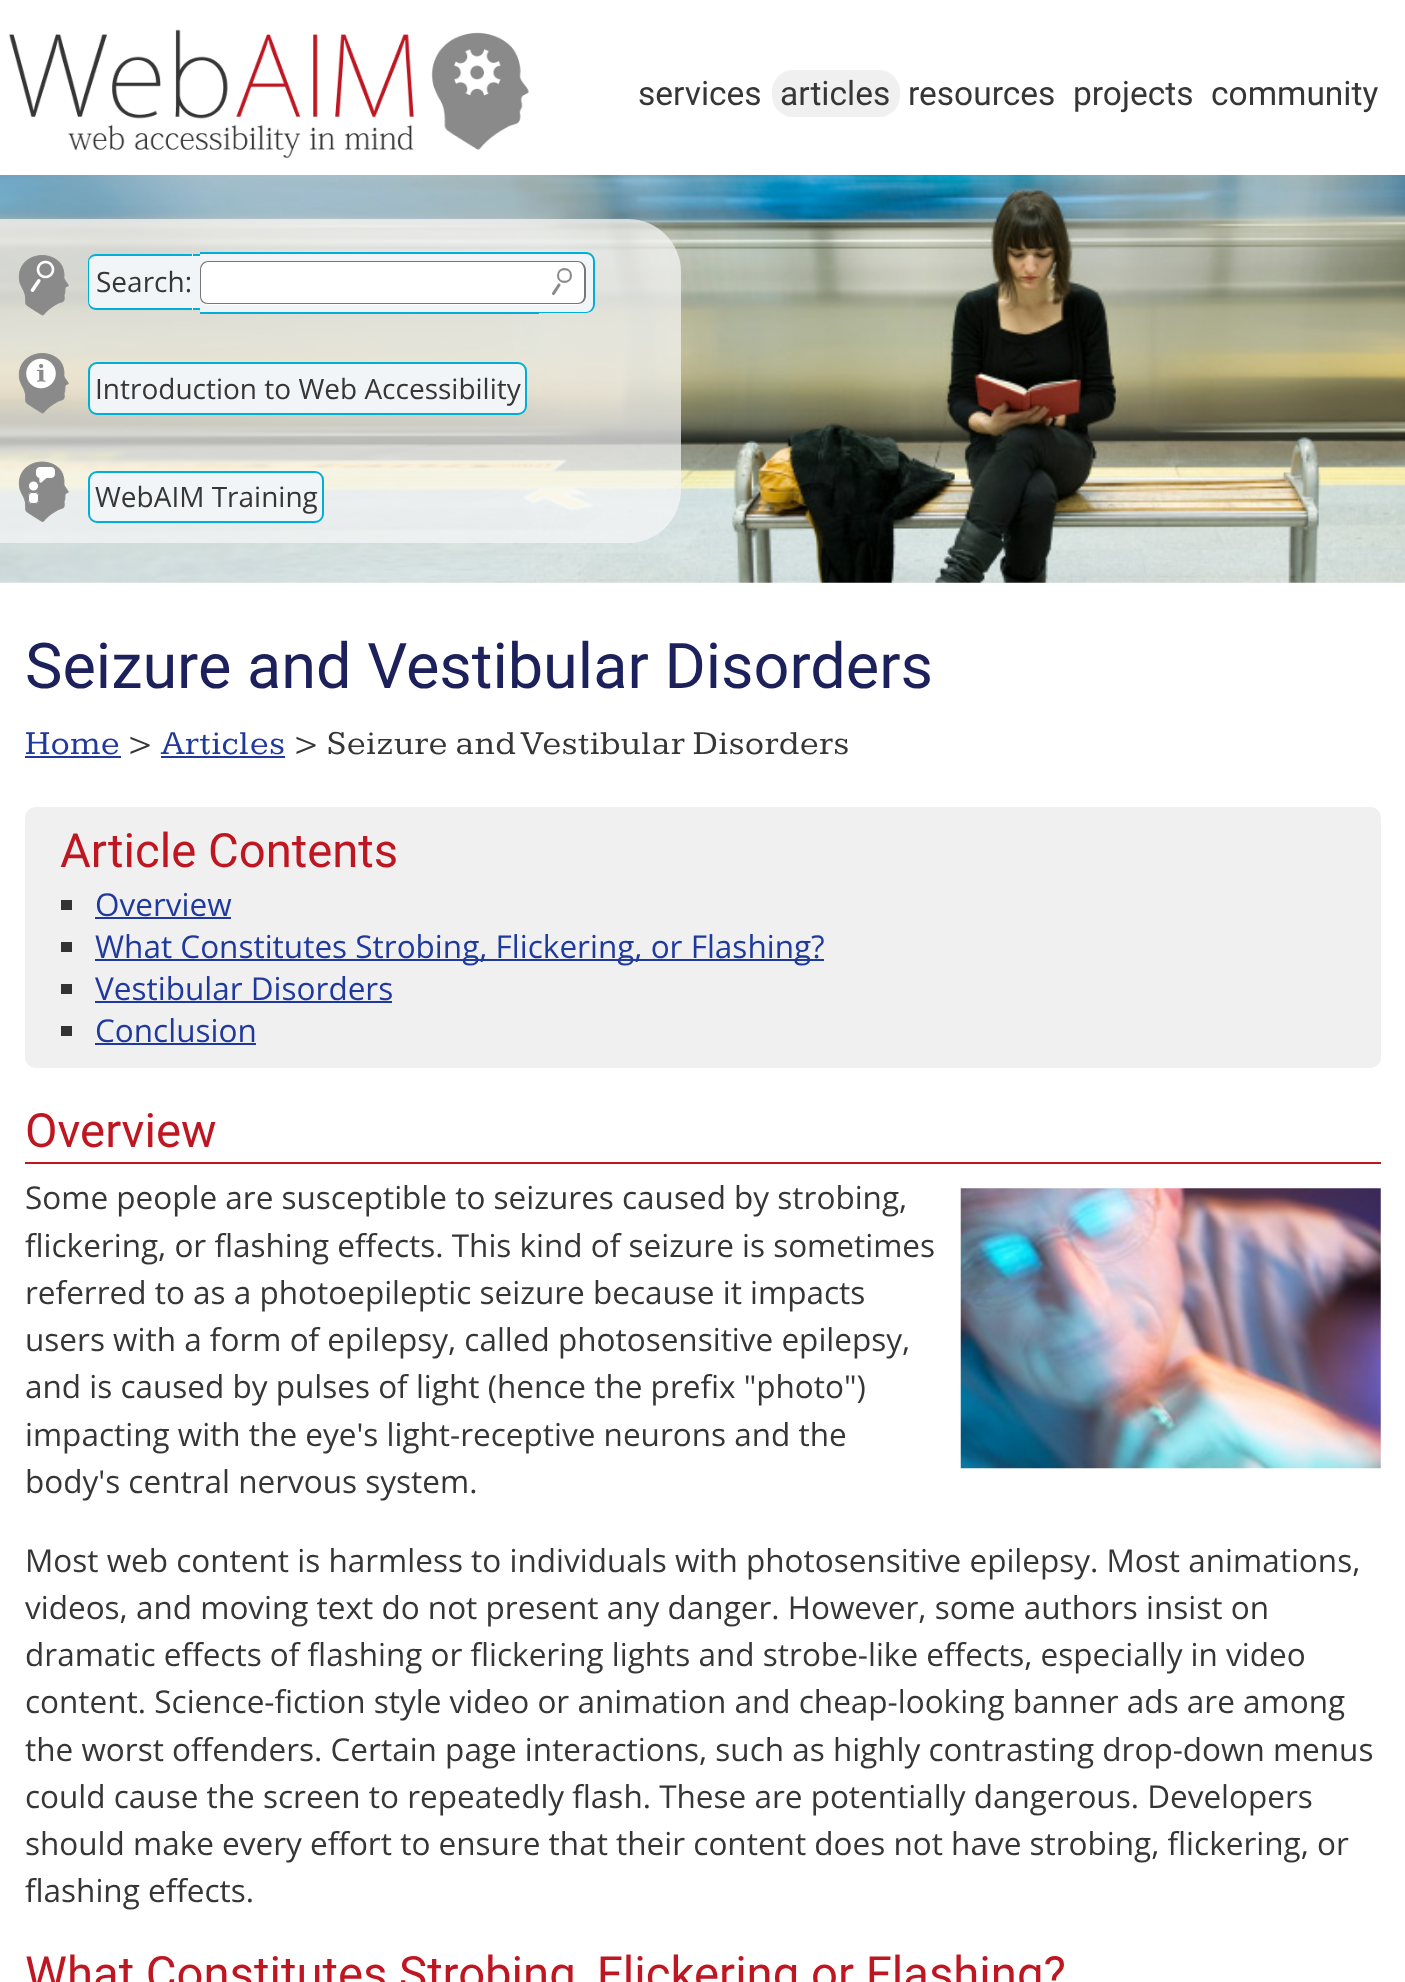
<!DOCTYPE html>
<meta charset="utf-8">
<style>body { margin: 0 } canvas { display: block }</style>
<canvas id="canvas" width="1405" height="1982"></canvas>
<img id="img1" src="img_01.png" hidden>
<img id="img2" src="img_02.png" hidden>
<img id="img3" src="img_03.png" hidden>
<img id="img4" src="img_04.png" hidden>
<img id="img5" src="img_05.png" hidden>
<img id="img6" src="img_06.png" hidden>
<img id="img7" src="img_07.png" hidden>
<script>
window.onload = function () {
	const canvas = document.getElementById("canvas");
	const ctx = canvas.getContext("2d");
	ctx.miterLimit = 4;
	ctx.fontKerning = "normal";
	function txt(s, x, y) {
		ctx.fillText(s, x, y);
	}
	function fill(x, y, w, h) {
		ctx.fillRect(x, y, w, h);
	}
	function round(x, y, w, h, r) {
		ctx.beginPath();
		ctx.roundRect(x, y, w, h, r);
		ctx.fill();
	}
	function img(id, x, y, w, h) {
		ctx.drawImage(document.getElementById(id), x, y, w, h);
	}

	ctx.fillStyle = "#FFFFFF";
	fill(0, 0, 1405, 1982);
	img("img1", 0, 175, 1405, 408);
	img("img2", 8, 29, 521, 130);
	img("img3", 452, 48, 51, 48);
	ctx.fillStyle = "#F0F0F0";
	round(772, 70, 128, 47, 21);
	ctx.fillStyle = "rgba(247, 247, 247, 0.7)";
	round(-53, 219, 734, 324, 53);
	img("img4", 18, 255, 51, 61);
	ctx.fillStyle = "#F1F5F7";
	ctx.beginPath();
	ctx.roundRect(88, 254, 105, 56, [9, 0, 0, 9]);
	ctx.fill();
	ctx.fillStyle = "#00AFD8";
	ctx.beginPath();
	ctx.moveTo(96, 254);
	ctx.lineTo(192, 254);
	ctx.lineTo(192, 310);
	ctx.lineTo(96, 310);
	ctx.bezierCurveTo(91, 310, 88, 306, 88, 301);
	ctx.lineTo(88, 262);
	ctx.bezierCurveTo(88, 258, 91, 254, 96, 254);
	ctx.closePath();
	ctx.moveTo(96, 256);
	ctx.lineTo(192, 256);
	ctx.lineTo(192, 308);
	ctx.lineTo(96, 308);
	ctx.bezierCurveTo(92, 308, 89, 305, 89, 301);
	ctx.lineTo(89, 262);
	ctx.bezierCurveTo(89, 259, 92, 256, 96, 256);
	ctx.closePath();
	ctx.fill("evenodd");
	ctx.fillStyle = "#F1F5F7";
	fill(193, 254, 7, 56);
	ctx.fillStyle = "#00AFD8";
	fill(193, 254, 7, 2);
	fill(193, 308, 7, 2);
	ctx.fillStyle = "#F1F5F7";
	fill(200, 254, 339, 58);
	ctx.fillStyle = "#00AFD8";
	fill(200, 252, 339, 2);
	fill(200, 312, 339, 2);
	ctx.fillStyle = "#F1F5F7";
	ctx.beginPath();
	ctx.roundRect(539, 252, 56, 61, [0, 9, 9, 0]);
	ctx.fill();
	ctx.fillStyle = "#00AFD8";
	ctx.beginPath();
	ctx.moveTo(539, 252);
	ctx.lineTo(586, 252);
	ctx.bezierCurveTo(591, 252, 595, 256, 595, 261);
	ctx.lineTo(595, 304);
	ctx.bezierCurveTo(595, 309, 591, 313, 586, 313);
	ctx.lineTo(539, 313);
	ctx.closePath();
	ctx.moveTo(539, 254);
	ctx.lineTo(586, 254);
	ctx.bezierCurveTo(590, 254, 593, 257, 593, 261);
	ctx.lineTo(593, 304);
	ctx.bezierCurveTo(593, 308, 590, 312, 586, 312);
	ctx.lineTo(539, 312);
	ctx.closePath();
	ctx.fill("evenodd");
	ctx.fillStyle = "#FFFFFF";
	ctx.beginPath();
	ctx.roundRect(200, 261, 339, 44, [9, 0, 0, 9]);
	ctx.fill();
	ctx.fillStyle = "#777777";
	ctx.beginPath();
	ctx.moveTo(208, 261);
	ctx.lineTo(539, 261);
	ctx.lineTo(539, 304);
	ctx.lineTo(208, 304);
	ctx.bezierCurveTo(203, 304, 200, 301, 200, 296);
	ctx.lineTo(200, 270);
	ctx.bezierCurveTo(200, 265, 203, 261, 208, 261);
	ctx.closePath();
	ctx.moveTo(208, 262);
	ctx.lineTo(539, 262);
	ctx.lineTo(539, 303);
	ctx.lineTo(208, 303);
	ctx.bezierCurveTo(204, 303, 201, 300, 201, 296);
	ctx.lineTo(201, 270);
	ctx.bezierCurveTo(201, 266, 204, 262, 208, 262);
	ctx.closePath();
	ctx.fill("evenodd");
	ctx.fillStyle = "#FFFFFF";
	ctx.beginPath();
	ctx.roundRect(539, 261, 47, 44, [0, 9, 9, 0]);
	ctx.fill();
	ctx.fillStyle = "#777777";
	ctx.beginPath();
	ctx.moveTo(539, 261);
	ctx.lineTo(578, 261);
	ctx.bezierCurveTo(582, 261, 586, 265, 586, 270);
	ctx.lineTo(586, 296);
	ctx.bezierCurveTo(586, 301, 582, 304, 578, 304);
	ctx.lineTo(539, 304);
	ctx.closePath();
	ctx.moveTo(539, 262);
	ctx.lineTo(578, 262);
	ctx.bezierCurveTo(581, 262, 584, 266, 584, 270);
	ctx.lineTo(584, 296);
	ctx.bezierCurveTo(584, 300, 581, 303, 578, 303);
	ctx.lineTo(539, 303);
	ctx.closePath();
	ctx.fill("evenodd");
	ctx.beginPath();
	ctx.moveTo(571, 275.5);
	ctx.bezierCurveTo(571, 284, 558, 284, 558, 275.5);
	ctx.bezierCurveTo(558, 267, 571, 267, 571, 275.5);
	ctx.closePath();
	ctx.strokeStyle = "#8A8A8A";
	ctx.lineWidth = 2.1;
	ctx.stroke();
	ctx.beginPath();
	ctx.moveTo(559, 285);
	ctx.lineTo(553.5, 293.5);
	ctx.lineWidth = 3.1;
	ctx.lineCap = "round";
	ctx.lineJoin = "round";
	ctx.stroke();
	img("img5", 18, 353, 51, 61);
	ctx.fillStyle = "#F1F5F7";
	ctx.beginPath();
	ctx.roundRect(89, 363, 437, 51, 8);
	ctx.fill();
	ctx.strokeStyle = "#00AFD8";
	ctx.lineWidth = 2;
	ctx.lineJoin = "miter";
	ctx.stroke();
	img("img6", 18, 461, 51, 61);
	ctx.beginPath();
	ctx.roundRect(89, 472, 234, 50, 8);
	ctx.fill();
	ctx.stroke();
	ctx.fillStyle = "#20399D";
	fill(25, 756, 96, 2);
	fill(161, 756, 124, 2);
	ctx.fillStyle = "#F0F0F0";
	round(25, 807, 1356, 261, 11);
	ctx.fillStyle = "#333333";
	fill(61, 900, 11, 10);
	ctx.fillStyle = "#20399D";
	fill(95, 917, 136, 2);
	ctx.fillStyle = "#333333";
	fill(61, 942, 11, 10);
	ctx.fillStyle = "#20399D";
	fill(95, 959, 729, 2);
	ctx.fillStyle = "#333333";
	fill(61, 984, 11, 10);
	ctx.fillStyle = "#20399D";
	fill(95, 1001, 297, 2);
	ctx.fillStyle = "#333333";
	fill(61, 1026, 11, 10);
	ctx.fillStyle = "#20399D";
	fill(95, 1043, 161, 2);
	ctx.fillStyle = "#BF1722";
	fill(25, 1162, 1356, 2);
	img("img7", 960, 1188, 421, 281);
	ctx.font = "33.5px Roboto";
	ctx.fillStyle = "#363636";
	txt("services", 638, 105);
	txt("articles", 780, 105);
	txt("resources", 908, 105);
	txt("projects", 1073, 105);
	txt("community", 1211, 105);
	ctx.font = "28px Open Sans";
	txt("Search:", 96, 292);
	txt("Introduction to Web Accessibility", 95, 399);
	txt("WebAIM Training", 95, 507);
	ctx.font = "63px Roboto";
	ctx.fillStyle = "#1C205B";
	txt("Seizure and Vestibular Disorders", 25, 688);
	ctx.letterSpacing = "0.7px";
	ctx.font = "34.6px Kameron";
	ctx.fillStyle = "#20399D";
	txt("Home", 25, 754);
	ctx.fillStyle = "#363636";
	txt(">", 127, 754);
	ctx.fillStyle = "#20399D";
	txt("Articles", 161, 754);
	ctx.fillStyle = "#363636";
	txt("> Seizure and Vestibular Disorders", 293, 754);
	ctx.letterSpacing = "0px";
	ctx.font = "47.25px Roboto";
	ctx.fillStyle = "#BF1722";
	txt("Article Contents", 60, 867);
	ctx.font = "31.5px Open Sans";
	ctx.fillStyle = "#20399D";
	txt("Overview", 95, 916);
	txt("What Constitutes Strobing, Flickering, or Flashing?", 95, 958);
	txt("Vestibular Disorders", 95, 1000);
	txt("Conclusion", 95, 1042);
	ctx.font = "47.25px Roboto";
	ctx.fillStyle = "#BF1722";
	txt("Overview", 25, 1147);
	ctx.font = "31.5px Open Sans";
	ctx.fillStyle = "#363636";
	txt("Some people are susceptible to seizures caused by strobing,", 25, 1209);
	txt("flickering, or flashing effects. This kind of seizure is sometimes", 25, 1257);
	txt("referred to as a photoepileptic seizure because it impacts", 25, 1304);
	txt("users with a form of epilepsy, called photosensitive epilepsy,", 25, 1351);
	txt("and is caused by pulses of light (hence the prefix \"photo\")", 25, 1398);
	txt("impacting with the eye's light-receptive neurons and the", 25, 1446);
	txt("body's central nervous system.", 25, 1493);
	txt("Most web content is harmless to individuals with photosensitive epilepsy. Most animations,", 25, 1572);
	txt("videos, and moving text do not present any danger. However, some authors insist on", 25, 1619);
	txt("dramatic effects of flashing or flickering lights and strobe-like effects, especially in video", 25, 1666);
	txt("content. Science-fiction style video or animation and cheap-looking banner ads are among", 25, 1713);
	txt("the worst offenders. Certain page interactions, such as highly contrasting drop-down menus", 25, 1761);
	txt("could cause the screen to repeatedly flash. These are potentially dangerous. Developers", 25, 1808);
	txt("should make every effort to ensure that their content does not have strobing, flickering, or", 25, 1855);
	txt("flashing effects.", 25, 1902);
	ctx.font = "47.25px Roboto";
	ctx.fillStyle = "#BF1722";
	txt("What Constitutes Strobing, Flickering or Flashing?", 25, 1990);
};
</script>
